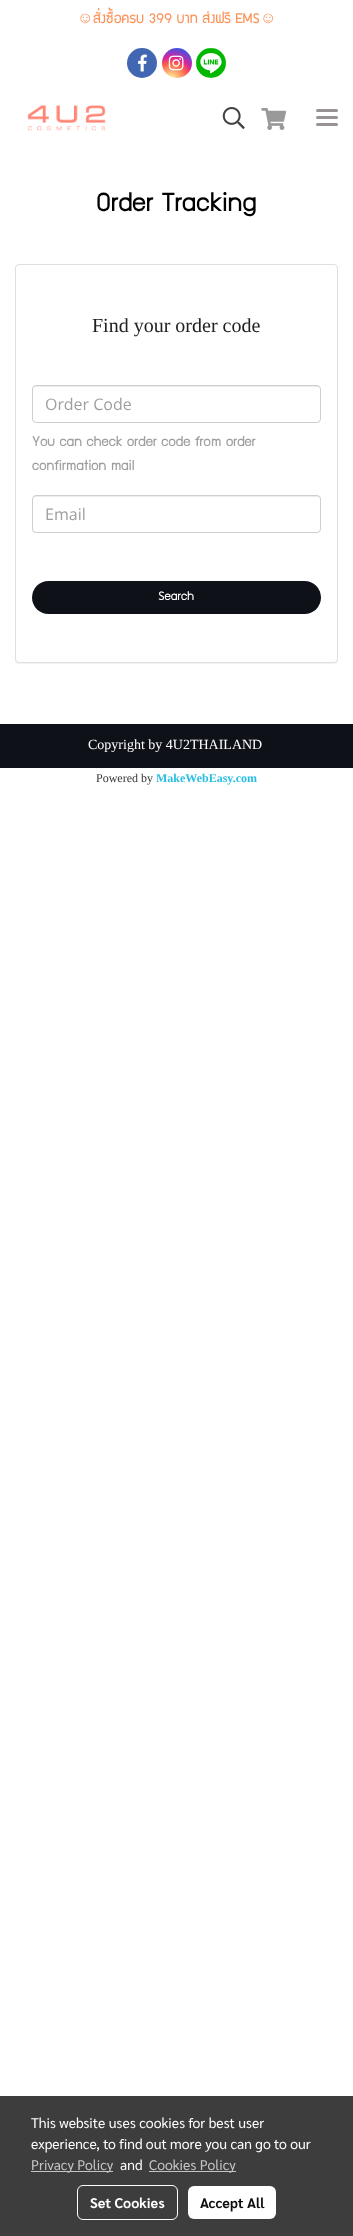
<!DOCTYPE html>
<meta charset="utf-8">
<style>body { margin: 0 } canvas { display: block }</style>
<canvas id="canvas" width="353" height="2236"></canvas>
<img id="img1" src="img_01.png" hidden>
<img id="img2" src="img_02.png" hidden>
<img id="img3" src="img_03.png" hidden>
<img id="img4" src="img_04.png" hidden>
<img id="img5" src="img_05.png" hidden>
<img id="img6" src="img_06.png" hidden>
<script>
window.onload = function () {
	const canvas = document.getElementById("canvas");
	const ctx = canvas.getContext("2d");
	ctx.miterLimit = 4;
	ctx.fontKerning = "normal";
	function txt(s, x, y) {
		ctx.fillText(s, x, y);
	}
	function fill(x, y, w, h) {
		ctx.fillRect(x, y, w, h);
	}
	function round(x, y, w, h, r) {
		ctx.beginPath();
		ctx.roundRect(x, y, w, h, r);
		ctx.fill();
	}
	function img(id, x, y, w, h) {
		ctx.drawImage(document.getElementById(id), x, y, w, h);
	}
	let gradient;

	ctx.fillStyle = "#FFFFFF";
	fill(0, 0, 353, 2236);
	ctx.fillStyle = "#4267B2";
	ctx.beginPath();
	ctx.arc(142, 63, 15, 0, Math.PI * 2);
	ctx.fill();
	img("img1", 138, 54, 9, 18);
	gradient = ctx.createRadialGradient(171, 80, 0, 171, 80, 38);
	gradient.addColorStop(0, "#FDF497");
	gradient.addColorStop(0.05, "#FDF497");
	gradient.addColorStop(0.45, "#FD5949");
	gradient.addColorStop(0.6, "#D6249F");
	gradient.addColorStop(0.9, "#285AEB");
	ctx.fillStyle = gradient;
	ctx.beginPath();
	ctx.arc(177, 63, 15, 0, Math.PI * 2);
	ctx.fill();
	img("img2", 168, 55, 16, 16);
	ctx.fillStyle = "#00B800";
	ctx.beginPath();
	ctx.arc(211, 63, 15, 0, Math.PI * 2);
	ctx.fill();
	img("img3", 196, 48, 30, 30);
	img("img4", 27, 105, 79, 26);
	img("img5", 222, 107, 23, 22);
	img("img6", 261, 108, 26, 22);
	ctx.fillStyle = "#989292";
	round(316, 116, 22, 3, 1.5);
	round(316, 109, 22, 3, 1.5);
	round(316, 123, 22, 3, 1.5);
	ctx.fillStyle = "rgba(0, 0, 0, 0.05)";
	ctx.filter = "blur(0.5px)";
	ctx.beginPath();
	ctx.roundRect(15, 265, 323, 399, 4);
	ctx.fill();
	ctx.filter = "none";
	ctx.fillStyle = "#FFFFFF";
	ctx.beginPath();
	ctx.roundRect(15.5, 264.5, 322, 398, 3.5);
	ctx.fill();
	ctx.strokeStyle = "#DFDFDF";
	ctx.stroke();
	ctx.fillStyle = "#ECECEC";
	ctx.beginPath();
	ctx.moveTo(36, 387);
	ctx.lineTo(317, 387);
	ctx.bezierCurveTo(319, 387, 320, 388, 320, 390);
	ctx.bezierCurveTo(320, 388, 319, 386, 317, 386);
	ctx.lineTo(36, 386);
	ctx.bezierCurveTo(34, 386, 33, 388, 33, 390);
	ctx.bezierCurveTo(33, 388, 34, 387, 36, 387);
	ctx.closePath();
	ctx.fill();
	ctx.beginPath();
	ctx.roundRect(32.5, 385.5, 288, 37, 3.5);
	ctx.strokeStyle = "#CDCED2";
	ctx.stroke();
	ctx.beginPath();
	ctx.moveTo(36, 497);
	ctx.lineTo(317, 497);
	ctx.bezierCurveTo(319, 497, 320, 498, 320, 500);
	ctx.bezierCurveTo(320, 498, 319, 496, 317, 496);
	ctx.lineTo(36, 496);
	ctx.bezierCurveTo(34, 496, 33, 498, 33, 500);
	ctx.bezierCurveTo(33, 498, 34, 497, 36, 497);
	ctx.closePath();
	ctx.fill();
	ctx.beginPath();
	ctx.roundRect(32.5, 495.5, 288, 37, 3.5);
	ctx.stroke();
	ctx.fillStyle = "#0E1118";
	round(32, 581, 289, 33, 16.5);
	fill(0, 724, 353, 44);
	ctx.fillStyle = "#3D3D3D";
	fill(0, 2096, 353, 140);
	ctx.fillStyle = "#C5C5C5";
	fill(31, 2171, 82, 1);
	fill(149, 2171, 87, 1);
	ctx.beginPath();
	ctx.roundRect(77.5, 2185.5, 100, 34, 5.5);
	ctx.strokeStyle = "#FFFFFF";
	ctx.stroke();
	ctx.fillStyle = "#FFFFFF";
	round(188, 2186, 88, 33, 6);
	ctx.font = "16px Liberation Serif";
	ctx.fillStyle = "#FC9258";
	txt("☺", 77, 23);
	ctx.font = "16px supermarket";
	txt("สั่งซื้อครบ 399 บาท ส่งฟรี EMS", 93, 23);
	ctx.font = "16px Liberation Serif";
	txt("☺", 260, 23);
	ctx.font = "30px supermarket";
	ctx.fillStyle = "#000000";
	txt("Order Tracking", 96, 211);
	ctx.font = "20px Liberation Serif";
	ctx.fillStyle = "#212121";
	txt("Find your order code", 92, 332);
	ctx.font = "16px Open Sans";
	ctx.fillStyle = "#9E9E9E";
	txt("Order Code", 45, 410);
	ctx.font = "16px supermarket";
	txt("You can check order code from order", 32, 446);
	txt("confirmation mail", 32, 470);
	ctx.font = "16px Open Sans";
	txt("Email", 45, 520);
	ctx.font = "14px supermarket";
	ctx.fillStyle = "#FFFFFF";
	txt("Search", 158, 600);
	ctx.font = "14px Liberation Serif";
	txt("Copyright by 4U2THAILAND", 88, 749);
	ctx.font = "12px Liberation Serif";
	ctx.fillStyle = "#353535";
	txt("Powered by", 96, 782);
	ctx.font = "bold 12px Liberation Serif";
	ctx.fillStyle = "#28BEE3";
	txt("MakeWebEasy.com", 156, 782);
	ctx.font = "14px Sarabun";
	ctx.fillStyle = "#FFFFFF";
	txt("This website uses cookies for best user", 31, 2128);
	txt("experience, to find out more you can go to our", 31, 2149);
	ctx.fillStyle = "#C5C5C5";
	txt("Privacy Policy", 31, 2170);
	ctx.fillStyle = "#FFFFFF";
	txt("and", 120, 2170);
	ctx.fillStyle = "#C5C5C5";
	txt("Cookies Policy", 149, 2170);
	ctx.font = "bold 14px Sarabun";
	ctx.fillStyle = "#FFFFFF";
	txt("Set Cookies", 90, 2208);
	ctx.fillStyle = "#0D0D0D";
	txt("Accept All", 200, 2208);
};
</script>
